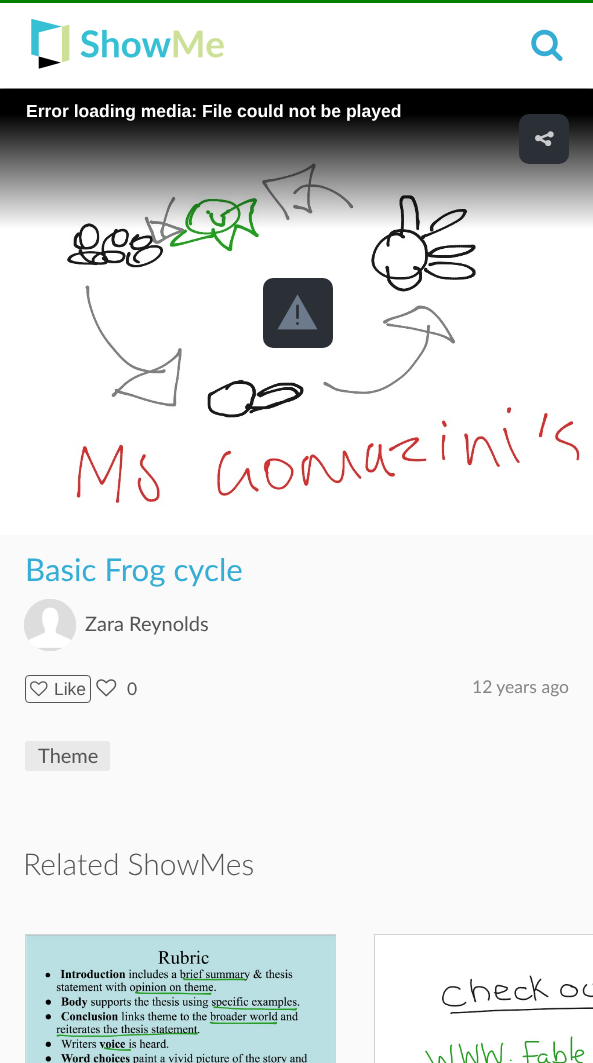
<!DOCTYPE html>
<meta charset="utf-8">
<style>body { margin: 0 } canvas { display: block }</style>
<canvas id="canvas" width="593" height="1063"></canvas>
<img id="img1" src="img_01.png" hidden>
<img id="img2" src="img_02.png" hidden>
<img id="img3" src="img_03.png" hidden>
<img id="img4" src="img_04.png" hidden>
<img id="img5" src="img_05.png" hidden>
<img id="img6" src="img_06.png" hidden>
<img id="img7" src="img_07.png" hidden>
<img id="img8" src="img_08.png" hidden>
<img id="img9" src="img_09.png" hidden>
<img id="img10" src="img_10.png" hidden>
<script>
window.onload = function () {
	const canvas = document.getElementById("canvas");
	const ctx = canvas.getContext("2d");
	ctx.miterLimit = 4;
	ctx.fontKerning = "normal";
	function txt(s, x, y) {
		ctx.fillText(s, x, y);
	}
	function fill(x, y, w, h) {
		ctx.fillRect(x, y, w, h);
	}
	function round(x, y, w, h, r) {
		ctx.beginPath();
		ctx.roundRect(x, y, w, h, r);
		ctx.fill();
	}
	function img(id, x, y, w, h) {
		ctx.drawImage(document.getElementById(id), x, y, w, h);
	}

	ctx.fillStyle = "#FAFAFA";
	fill(0, 0, 593, 1063);
	ctx.fillStyle = "#A2A2A2";
	fill(0, 88, 593, 1);
	ctx.fillStyle = "rgba(0, 0, 0, 0.4)";
	ctx.filter = "blur(6px)";
	ctx.beginPath();
	ctx.rect(0, 0, 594, 88);
	ctx.fill();
	ctx.filter = "none";
	ctx.fillStyle = "#008000";
	fill(0, 0, 593, 3);
	ctx.fillStyle = "#FFFFFF";
	fill(0, 3, 593, 85);
	img("img1", 31, 19, 193, 50);
	img("img2", 531, 29, 32, 33);
	ctx.fillStyle = "#000000";
	fill(0, 89, 593, 1);
	img("img3", 0, 90, 593, 445);
	ctx.fillStyle = "#2B3036";
	round(519, 114, 50, 50, 10);
	img("img4", 535, 131, 19, 15);
	round(263, 278, 70, 70, 10);
	img("img5", 277, 294, 41, 36);
	img("img6", 24, 599, 52, 52);
	ctx.beginPath();
	ctx.roundRect(25.5, 675.5, 65, 27, 3.5);
	ctx.strokeStyle = "#555555";
	ctx.stroke();
	img("img7", 30, 681, 18, 16);
	img("img8", 96, 679, 21, 18);
	ctx.fillStyle = "#E9E9E9";
	round(25, 741, 85, 30, 2.5);
	ctx.strokeStyle = "#D3D3D3";
	ctx.strokeRect(25.5, 934.5, 310, 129);
	img("img9", 26, 935, 309, 128);
	ctx.strokeRect(374.5, 934.5, 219, 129);
	img("img10", 375, 935, 218, 128);
	ctx.font = "bold 17.5px Liberation Sans";
	ctx.fillStyle = "#FFFFFF";
	txt("Error loading media: File could not be played", 26, 117);
	ctx.font = "31.25px Lato";
	ctx.fillStyle = "#35ADD4";
	txt("Basic Frog cycle", 25, 581);
	ctx.font = "20px Lato";
	ctx.fillStyle = "#555555";
	txt("Zara Reynolds", 85, 631);
	ctx.font = "17.5px Liberation Sans";
	txt("Like", 54, 695);
	ctx.font = "17.5px Lato";
	txt("0", 127, 695);
	ctx.fillStyle = "#868686";
	txt("12 years ago", 472, 693);
	ctx.font = "20px Lato";
	ctx.fillStyle = "#555555";
	txt("Theme", 38, 763);
	ctx.font = "300 30px Lato";
	txt("Related ShowMes", 23, 875);
};
</script>
